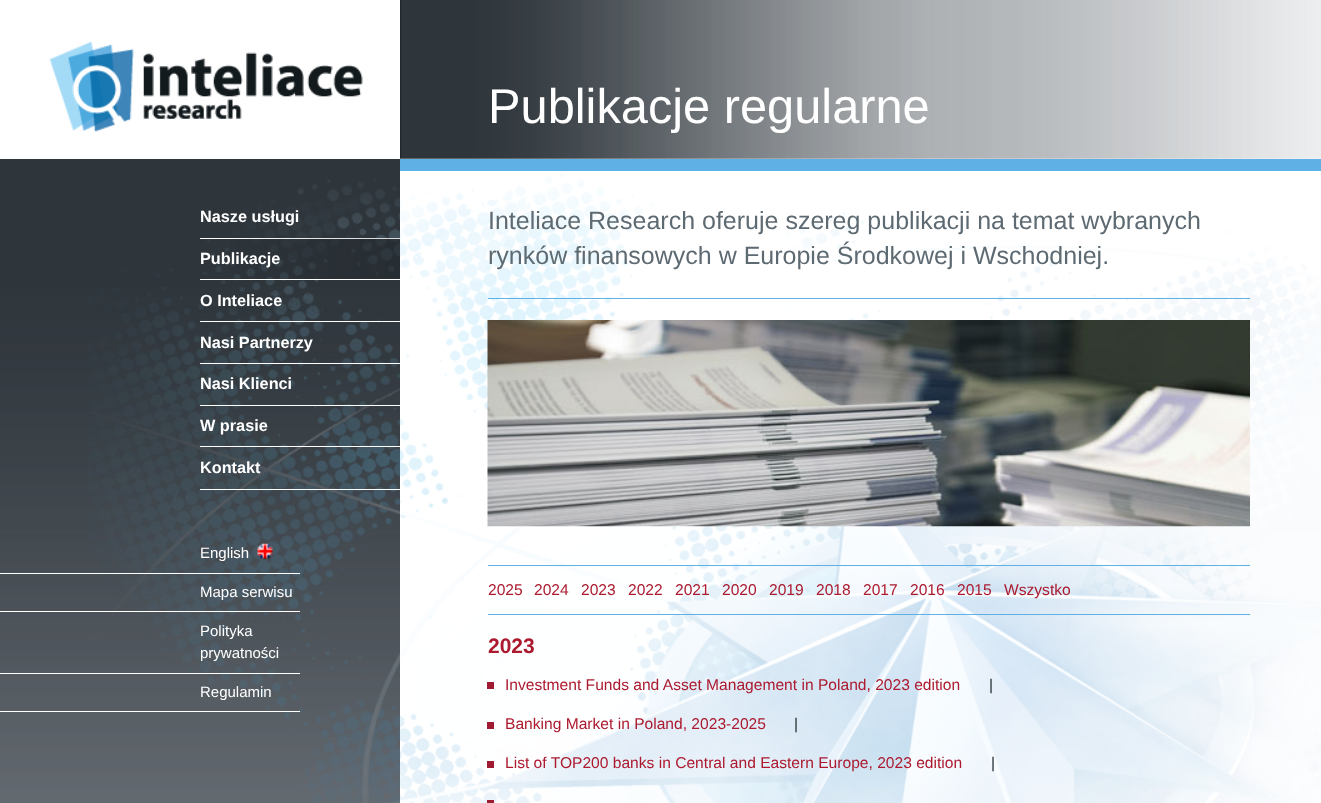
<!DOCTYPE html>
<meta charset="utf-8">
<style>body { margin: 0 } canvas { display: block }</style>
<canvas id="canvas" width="1321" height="803"></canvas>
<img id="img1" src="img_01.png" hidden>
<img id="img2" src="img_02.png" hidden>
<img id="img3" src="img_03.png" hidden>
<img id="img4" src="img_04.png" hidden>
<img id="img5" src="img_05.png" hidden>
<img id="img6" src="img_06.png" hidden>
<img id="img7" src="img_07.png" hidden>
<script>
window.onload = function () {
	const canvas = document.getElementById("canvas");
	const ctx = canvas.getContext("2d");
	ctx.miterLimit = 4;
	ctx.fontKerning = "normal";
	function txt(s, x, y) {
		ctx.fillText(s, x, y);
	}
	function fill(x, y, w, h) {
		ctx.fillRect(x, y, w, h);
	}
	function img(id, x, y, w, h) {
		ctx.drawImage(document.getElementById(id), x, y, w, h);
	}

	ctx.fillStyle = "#FFFFFF";
	fill(0, 0, 1321, 803);
	img("img1", 49, 41, 314, 91);
	img("img2", 400, 0, 921, 159);
	ctx.fillStyle = "#B1B6BD";
	fill(0, 297, 400, 506);
	img("img3", 0, 159, 400, 644);
	img("img4", 88, 172, 1233, 631);
	ctx.fillStyle = "#FFFFFF";
	fill(200, 238, 200, 1);
	img("img5", 231, 238, 169, 41);
	fill(200, 279, 200, 1);
	fill(200, 321, 200, 1);
	fill(200, 363, 200, 1);
	fill(200, 405, 200, 1);
	fill(200, 446, 200, 1);
	fill(200, 489, 200, 1);
	fill(0, 573, 300, 1);
	img("img6", 257, 543, 16, 16);
	fill(0, 611, 300, 1);
	fill(0, 673, 300, 1);
	fill(0, 711, 300, 1);
	ctx.fillStyle = "#5EB0E5";
	fill(400, 159, 921, 12);
	fill(488, 298, 762, 1);
	img("img7", 487, 320, 763, 207);
	fill(488, 565, 762, 1);
	fill(488, 614, 762, 1);
	ctx.fillStyle = "#9F1B32";
	fill(487, 682, 7, 7);
	fill(487, 722, 7, 7);
	fill(487, 761, 7, 7);
	fill(487, 800, 7, 3);
	ctx.font = "48.75px Liberation Sans";
	ctx.fillStyle = "#FFFFFF";
	txt("Publikacje regularne", 488, 123);
	ctx.font = "bold 16.25px Liberation Sans";
	txt("Nasze usługi", 200, 222);
	txt("Publikacje", 200, 264);
	txt("O Inteliace", 200, 306);
	txt("Nasi Partnerzy", 200, 348);
	txt("Nasi Klienci", 200, 389);
	txt("W prasie", 200, 431);
	txt("Kontakt", 200, 473);
	ctx.font = "15px Liberation Sans";
	txt("English", 200, 558);
	txt("Mapa serwisu", 200, 597);
	txt("Polityka", 200, 636);
	txt("prywatności", 200, 658);
	txt("Regulamin", 200, 697);
	ctx.font = "25px Liberation Sans";
	ctx.fillStyle = "#5E6A72";
	txt("Inteliace Research oferuje szereg publikacji na temat wybranych", 488, 229);
	txt("rynków finansowych w Europie Środkowej i Wschodniej.", 488, 264);
	ctx.font = "15.6px Liberation Sans";
	ctx.fillStyle = "#AC1A2F";
	txt("2025", 488, 595);
	txt("2024", 534, 595);
	txt("2023", 581, 595);
	txt("2022", 628, 595);
	txt("2021", 675, 595);
	txt("2020", 722, 595);
	txt("2019", 769, 595);
	txt("2018", 816, 595);
	txt("2017", 863, 595);
	txt("2016", 910, 595);
	txt("2015", 957, 595);
	txt("Wszystko", 1004, 595);
	ctx.font = "bold 21px Liberation Sans";
	txt("2023", 488, 653);
	ctx.font = "15.6px Liberation Sans";
	txt("Investment Funds and Asset Management in Poland, 2023 edition", 505, 690);
	ctx.fillStyle = "#19262B";
	txt("|", 989, 690);
	ctx.fillStyle = "#AC1A2F";
	txt("Banking Market in Poland, 2023-2025", 505, 729);
	ctx.fillStyle = "#19262B";
	txt("|", 794, 729);
	ctx.fillStyle = "#AC1A2F";
	txt("List of TOP200 banks in Central and Eastern Europe, 2023 edition", 505, 768);
	ctx.fillStyle = "#19262B";
	txt("|", 991, 768);
};
</script>
